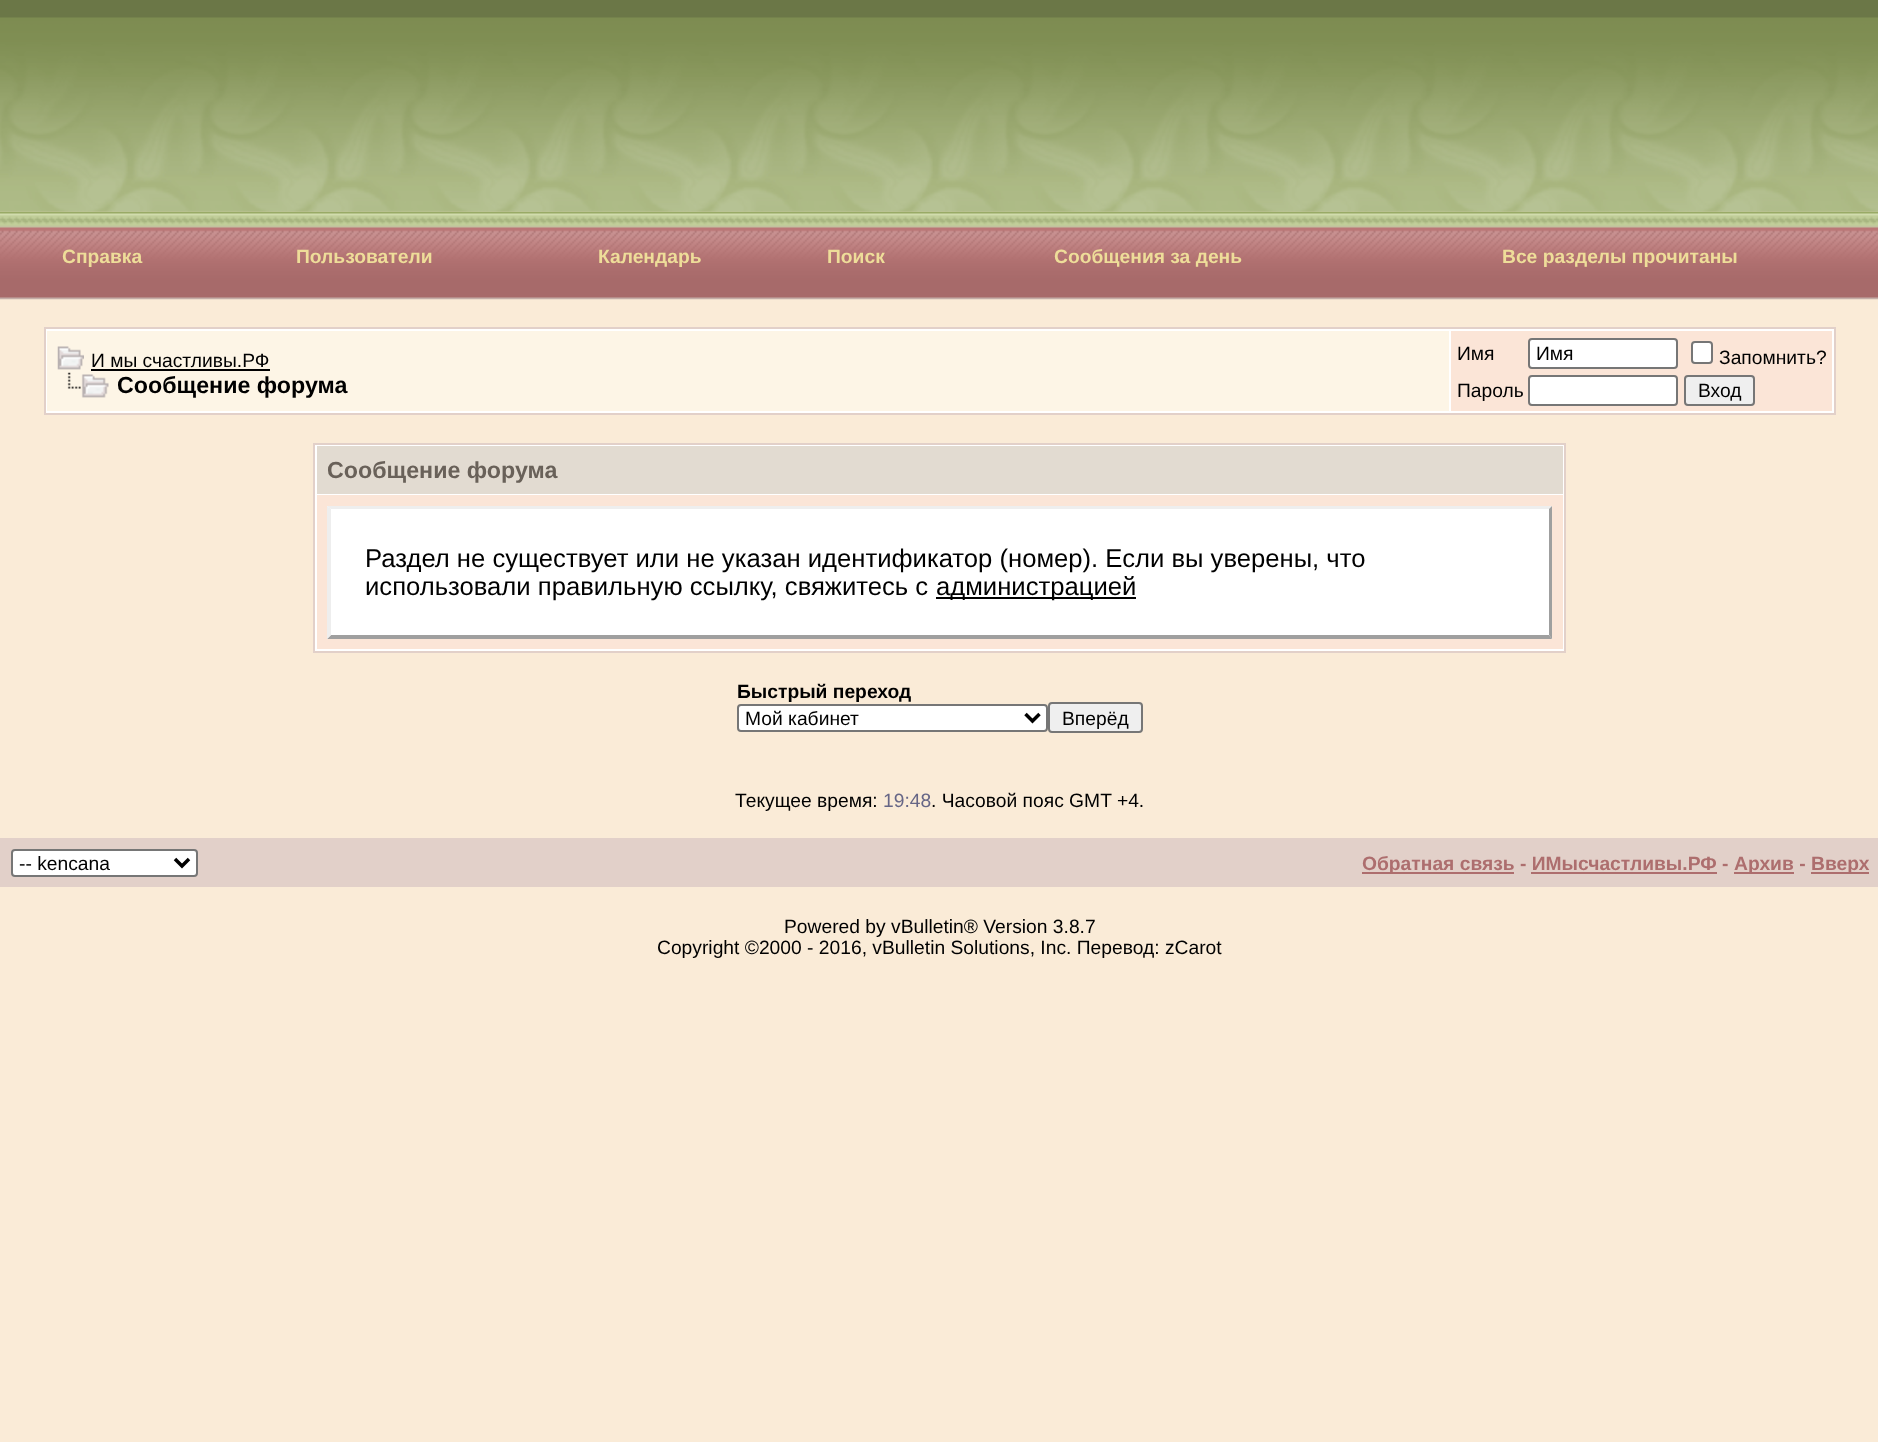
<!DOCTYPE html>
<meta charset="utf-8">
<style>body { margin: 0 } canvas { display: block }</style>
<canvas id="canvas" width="1878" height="1442"></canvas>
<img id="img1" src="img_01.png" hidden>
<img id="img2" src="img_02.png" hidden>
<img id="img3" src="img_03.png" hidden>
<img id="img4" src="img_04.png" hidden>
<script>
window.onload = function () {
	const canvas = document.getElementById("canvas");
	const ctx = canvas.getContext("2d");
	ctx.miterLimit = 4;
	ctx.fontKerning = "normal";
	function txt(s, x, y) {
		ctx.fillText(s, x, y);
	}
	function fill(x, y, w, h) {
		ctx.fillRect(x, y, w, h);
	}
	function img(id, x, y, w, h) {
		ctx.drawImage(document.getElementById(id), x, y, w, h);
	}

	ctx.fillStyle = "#FAEBD7";
	fill(0, 0, 1878, 1442);
	img("img1", 0, 0, 1878, 212);
	img("img2", 0, 211, 1878, 89);
	ctx.fillStyle = "#FFFFFF";
	ctx.beginPath();
	ctx.rect(45, 328, 1790, 86);
	ctx.fill();
	ctx.strokeStyle = "#E2D0C9";
	ctx.lineWidth = 2;
	ctx.stroke();
	ctx.fillStyle = "#FDF5E6";
	fill(47, 331, 1402, 80);
	img("img3", 57, 346, 27, 24);
	ctx.fillStyle = "#000000";
	fill(91, 369, 179, 2);
	img("img4", 67, 372, 42, 26);
	ctx.fillStyle = "#FBE5D7";
	fill(1451, 331, 381, 80);
	ctx.fillStyle = "#FFFFFF";
	ctx.beginPath();
	ctx.roundRect(1529, 339, 148, 29, 3);
	ctx.fill();
	ctx.strokeStyle = "#767676";
	ctx.stroke();
	ctx.beginPath();
	ctx.roundRect(1692, 342, 20, 21, 3);
	ctx.fill();
	ctx.stroke();
	ctx.beginPath();
	ctx.roundRect(1529, 376, 148, 29, 3);
	ctx.fill();
	ctx.stroke();
	ctx.fillStyle = "#EFEFEF";
	ctx.beginPath();
	ctx.roundRect(1685, 376, 69, 29, 3);
	ctx.fill();
	ctx.stroke();
	ctx.fillStyle = "#FFFFFF";
	ctx.beginPath();
	ctx.rect(314, 444, 1251, 208);
	ctx.fill();
	ctx.strokeStyle = "#E2D0C9";
	ctx.stroke();
	ctx.fillStyle = "#E2DBD1";
	fill(317, 446, 1246, 48);
	ctx.fillStyle = "#FBE5D7";
	fill(317, 495, 1246, 154);
	ctx.fillStyle = "#FFFFFF";
	fill(327, 506, 1225, 133);
	ctx.fillStyle = "#EEEEEE";
	ctx.beginPath();
	ctx.moveTo(327, 506);
	ctx.lineTo(1552, 506);
	ctx.lineTo(1549, 509);
	ctx.lineTo(331, 509);
	ctx.closePath();
	ctx.fill();
	ctx.fillStyle = "#9F9F9F";
	ctx.beginPath();
	ctx.moveTo(1552, 506);
	ctx.lineTo(1552, 639);
	ctx.lineTo(1549, 635);
	ctx.lineTo(1549, 509);
	ctx.closePath();
	ctx.fill();
	ctx.beginPath();
	ctx.moveTo(1552, 639);
	ctx.lineTo(327, 639);
	ctx.lineTo(331, 635);
	ctx.lineTo(1549, 635);
	ctx.closePath();
	ctx.fill();
	ctx.fillStyle = "#EEEEEE";
	ctx.beginPath();
	ctx.moveTo(327, 639);
	ctx.lineTo(327, 506);
	ctx.lineTo(331, 509);
	ctx.lineTo(331, 635);
	ctx.closePath();
	ctx.fill();
	ctx.fillStyle = "#000000";
	fill(936, 597, 200, 2);
	ctx.fillStyle = "#FFFFFF";
	ctx.beginPath();
	ctx.roundRect(738, 705, 309, 26, 3);
	ctx.fill();
	ctx.strokeStyle = "#767676";
	ctx.stroke();
	ctx.beginPath();
	ctx.moveTo(1025.5, 714);
	ctx.lineTo(1032.5, 721);
	ctx.lineTo(1039.5, 714);
	ctx.strokeStyle = "#000000";
	ctx.lineWidth = 3.5;
	ctx.stroke();
	ctx.fillStyle = "#EFEFEF";
	ctx.beginPath();
	ctx.roundRect(1049, 703, 93, 29, 3);
	ctx.fill();
	ctx.strokeStyle = "#767676";
	ctx.lineWidth = 2;
	ctx.stroke();
	ctx.fillStyle = "#E2D0C9";
	fill(0, 838, 1878, 49);
	ctx.fillStyle = "#FFFFFF";
	ctx.beginPath();
	ctx.roundRect(12, 850, 185, 26, 3);
	ctx.fill();
	ctx.stroke();
	ctx.beginPath();
	ctx.moveTo(175, 859);
	ctx.lineTo(182, 866);
	ctx.lineTo(189, 859);
	ctx.strokeStyle = "#000000";
	ctx.lineWidth = 3.5;
	ctx.stroke();
	ctx.fillStyle = "#AD6E6E";
	fill(1362, 872, 152, 2);
	fill(1531, 872, 186, 2);
	fill(1734, 872, 60, 2);
	fill(1811, 872, 58, 2);
	ctx.font = "bold 19.25px Liberation Sans";
	ctx.fillStyle = "#EEDD99";
	txt("Справка", 62, 263);
	txt("Пользователи", 296, 263);
	txt("Календарь", 598, 263);
	txt("Поиск", 827, 263);
	txt("Сообщения за день", 1054, 263);
	txt("Все разделы прочитаны", 1502, 263);
	ctx.font = "19.25px Liberation Sans";
	ctx.fillStyle = "#000000";
	txt("И мы счастливы.РФ", 91, 367);
	ctx.font = "bold 23.25px Liberation Sans";
	txt("Сообщение форума", 117, 393);
	ctx.font = "19.25px Liberation Sans";
	txt("Имя", 1457, 360);
	txt("Имя", 1536, 360);
	txt("Запомнить?", 1719, 364);
	txt("Пароль", 1457, 397);
	txt("Вход", 1698, 397);
	ctx.font = "bold 23.25px Liberation Sans";
	ctx.fillStyle = "#696159";
	txt("Сообщение форума", 327, 478);
	ctx.font = "25.65px Liberation Sans";
	ctx.fillStyle = "#000000";
	txt("Раздел не существует или не указан идентификатор (номер). Если вы уверены, что", 365, 567);
	txt("использовали правильную ссылку, свяжитесь с", 365, 595);
	txt("администрацией", 936, 595);
	ctx.font = "bold 19.25px Liberation Sans";
	txt("Быстрый переход", 737, 698);
	ctx.font = "19.25px Liberation Sans";
	txt("Мой кабинет", 745, 725);
	txt("Вперёд", 1062, 725);
	txt("Текущее время:", 735, 807);
	ctx.fillStyle = "#666686";
	txt("19:48", 883, 807);
	ctx.fillStyle = "#000000";
	txt(". Часовой пояс GMT +4.", 931, 807);
	txt("-- kencana", 19, 870);
	ctx.font = "bold 19.25px Liberation Sans";
	ctx.fillStyle = "#AD6E6E";
	txt("Обратная связь - ИМысчастливы.РФ -", 1362, 870);
	txt("Архив -", 1734, 870);
	txt("Вверх", 1811, 870);
	ctx.font = "19.25px Liberation Sans";
	ctx.fillStyle = "#000000";
	txt("Powered by vBulletin® Version 3.8.7", 784, 933);
	txt("Copyright ©2000 - 2016, vBulletin Solutions, Inc. Перевод: zCarot", 657, 954);
};
</script>
